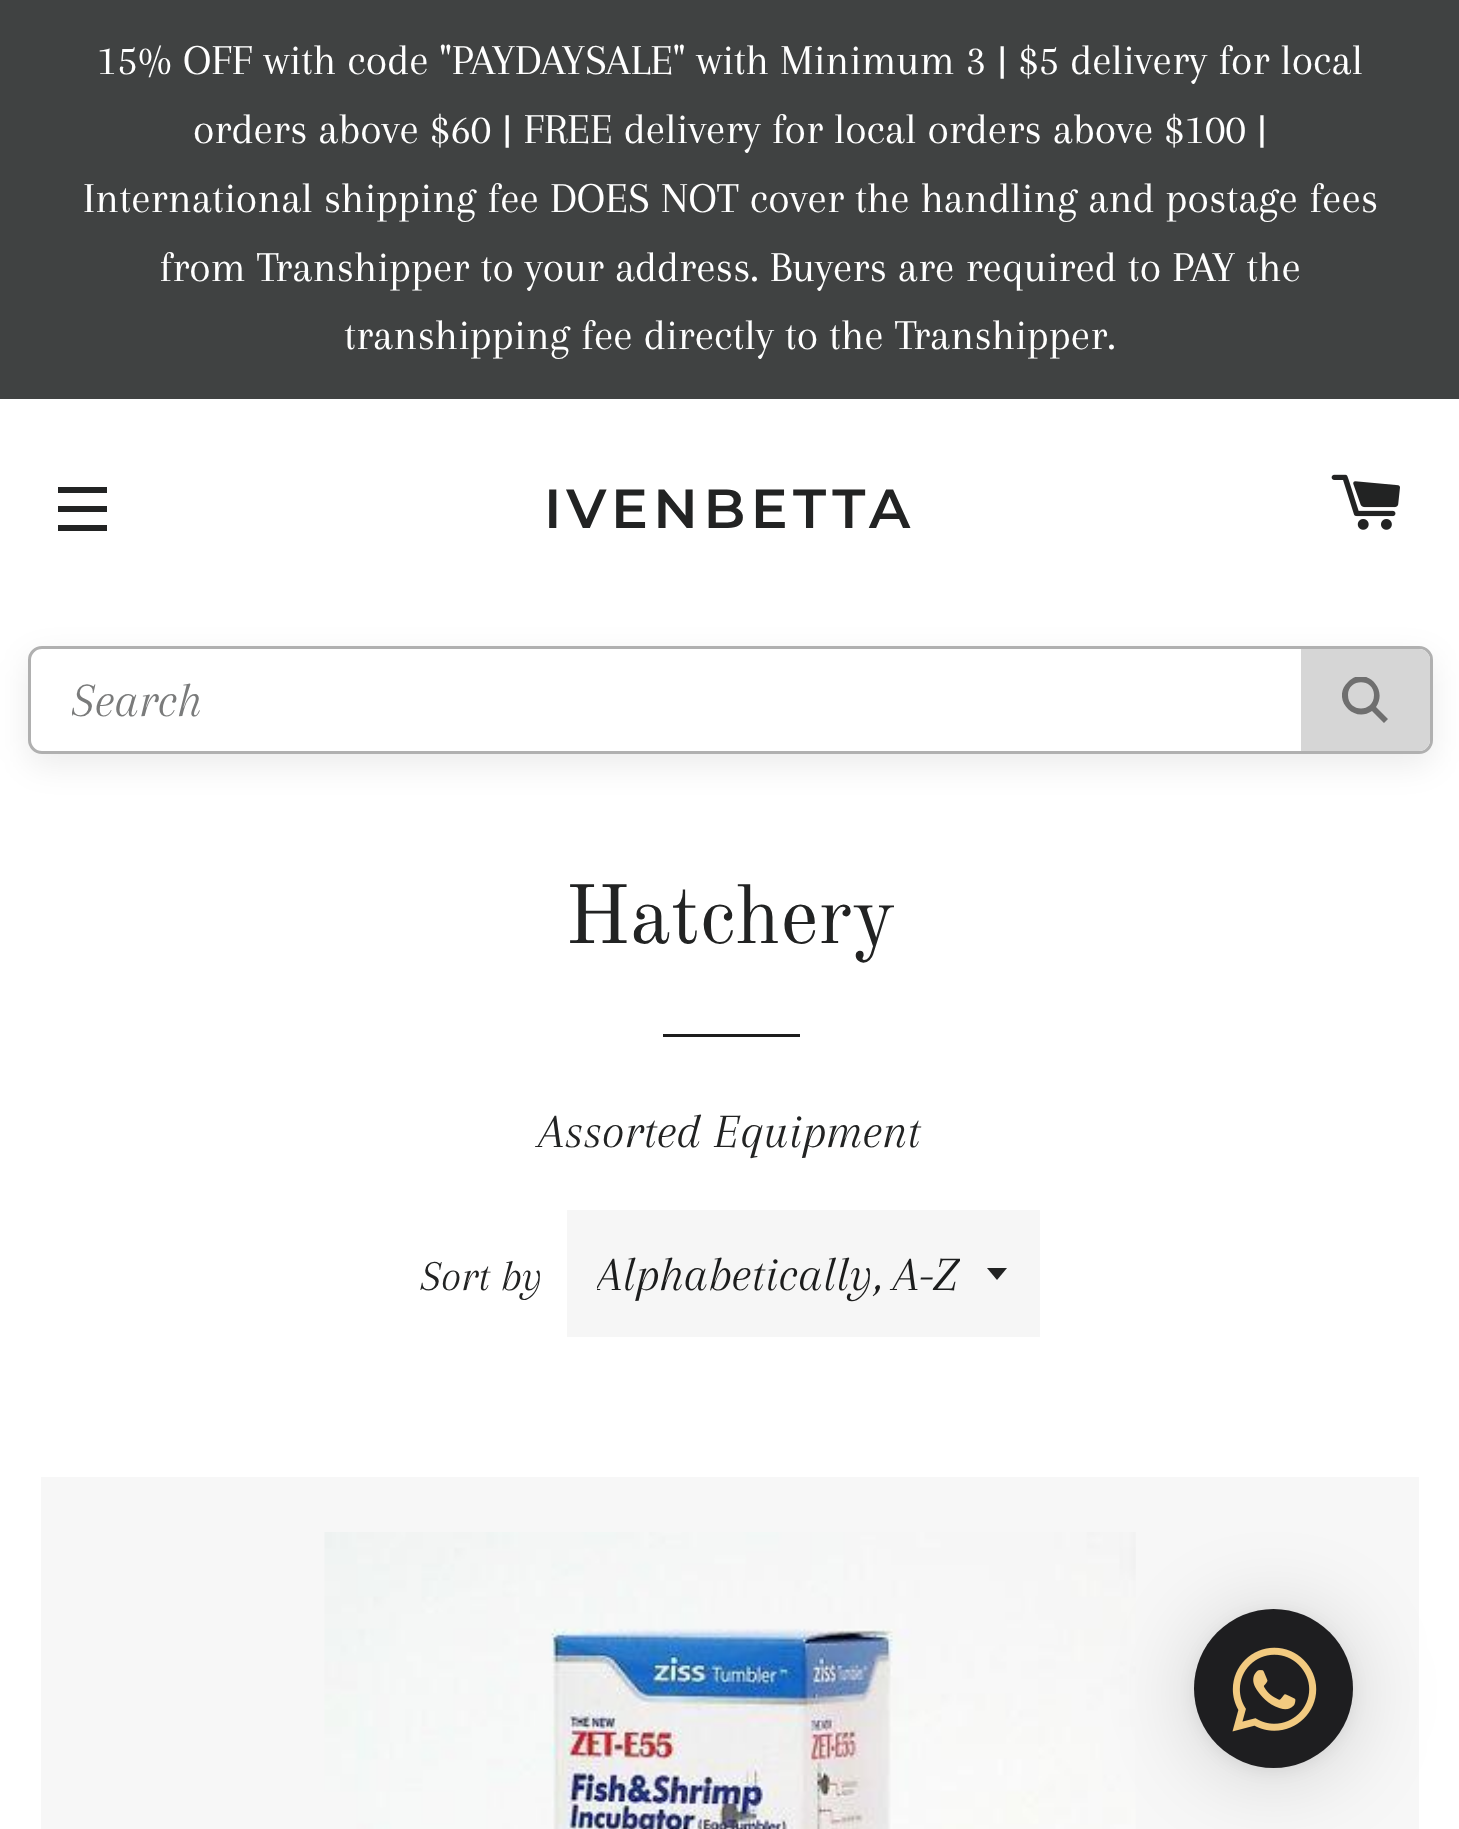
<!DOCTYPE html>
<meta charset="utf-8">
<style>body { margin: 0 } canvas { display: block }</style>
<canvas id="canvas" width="1459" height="1829"></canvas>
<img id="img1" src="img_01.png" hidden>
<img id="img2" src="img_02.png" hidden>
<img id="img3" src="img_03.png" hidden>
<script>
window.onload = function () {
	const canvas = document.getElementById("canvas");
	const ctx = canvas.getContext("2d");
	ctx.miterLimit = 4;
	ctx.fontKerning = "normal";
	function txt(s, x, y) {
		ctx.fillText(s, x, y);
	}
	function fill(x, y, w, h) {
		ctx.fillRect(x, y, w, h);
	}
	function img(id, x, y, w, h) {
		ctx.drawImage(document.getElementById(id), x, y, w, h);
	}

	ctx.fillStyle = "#FFFFFF";
	fill(0, 0, 1459, 1829);
	ctx.fillStyle = "#404242";
	fill(0, 0, 1459, 399);
	ctx.fillStyle = "#222323";
	fill(58, 487, 49, 6);
	fill(58, 506, 49, 6);
	fill(58, 525, 49, 6);
	img("img1", 1331, 474, 69, 56);
	ctx.fillStyle = "rgba(0, 0, 0, 0.08)";
	ctx.filter = "blur(16.5px)";
	ctx.beginPath();
	ctx.roundRect(28, 657, 1405, 108, 14);
	ctx.fill();
	ctx.filter = "none";
	ctx.fillStyle = "#FFFFFF";
	ctx.beginPath();
	ctx.roundRect(29.5, 647.5, 1402, 105, 12.5);
	ctx.fill();
	ctx.strokeStyle = "#B0B0B0";
	ctx.lineWidth = 3;
	ctx.stroke();
	ctx.fillStyle = "#D6D6D6";
	ctx.beginPath();
	ctx.roundRect(1301, 649, 129, 102, [0, 11, 11, 0]);
	ctx.fill();
	ctx.save();
	ctx.beginPath();
	ctx.rect(1342, 677, 47, 46);
	ctx.clip();
	ctx.fillStyle = "#6F6F6F";
	ctx.beginPath();
	ctx.moveTo(1388, 719);
	ctx.lineTo(1376, 707);
	ctx.bezierCurveTo(1389, 688, 1364, 665, 1348, 682);
	ctx.bezierCurveTo(1331, 698, 1353, 724, 1372, 711);
	ctx.lineTo(1384, 723);
	ctx.closePath();
	ctx.moveTo(1348, 695);
	ctx.bezierCurveTo(1348, 678, 1374, 678, 1374, 695);
	ctx.bezierCurveTo(1374, 713, 1348, 713, 1348, 695);
	ctx.closePath();
	ctx.fill();
	ctx.restore();
	ctx.fillStyle = "#1C1D1D";
	fill(663, 1034, 137, 3);
	ctx.fillStyle = "#F6F6F6";
	fill(567, 1210, 473, 127);
	ctx.fillStyle = "#222323";
	ctx.beginPath();
	ctx.moveTo(987, 1268);
	ctx.lineTo(997, 1280);
	ctx.lineTo(1007, 1268);
	ctx.closePath();
	ctx.fill();
	ctx.fillStyle = "#F7F7F7";
	fill(41, 1477, 1378, 352);
	img("img2", 324, 1532, 812, 297);
	ctx.fillStyle = "rgba(0, 0, 0, 0.16)";
	ctx.filter = "blur(44px)";
	ctx.beginPath();
	ctx.roundRect(1194, 1614, 159, 160, 79.5);
	ctx.fill();
	ctx.filter = "none";
	ctx.fillStyle = "rgba(0, 0, 0, 0.06)";
	ctx.filter = "blur(8px)";
	ctx.beginPath();
	ctx.roundRect(1194, 1612, 159, 159, 79.5);
	ctx.fill();
	ctx.filter = "none";
	ctx.fillStyle = "#1E1E20";
	ctx.beginPath();
	ctx.arc(1273.5, 1688.5, 79.5, 0, Math.PI * 2);
	ctx.fill();
	img("img3", 1232, 1647, 85, 85);
	ctx.font = "44px Arapey";
	ctx.fillStyle = "#FFFFFF";
	txt("15% OFF with code \"PAYDAYSALE\" with Minimum 3 | $5 delivery for local", 97, 74);
	txt("orders above $60 | FREE delivery for local orders above $100 |", 193, 143);
	txt("International shipping fee DOES NOT cover the handling and postage fees", 83, 212);
	txt("from Transhipper to your address. Buyers are required to PAY the", 159, 281);
	txt("transhipping fee directly to the Transhipper.", 344, 349);
	ctx.letterSpacing = "5.5px";
	ctx.font = "600 55px Montserrat";
	ctx.fillStyle = "#222323";
	txt("IVENBETTA", 544, 528);
	ctx.save();
	ctx.beginPath();
	ctx.rect(72, 674, 1207, 55);
	ctx.clip();
	ctx.letterSpacing = "0px";
	ctx.font = "italic 49.5px Arapey";
	ctx.fillStyle = "#7A7B7B";
	txt("Search", 72, 716);
	ctx.restore();
	ctx.letterSpacing = "0px";
	ctx.font = "82.5px Old Standard TT";
	txt("Hatchery", 565, 943);
	ctx.font = "italic 49.5px Arapey";
	txt("Assorted Equipment", 539, 1147);
	ctx.font = "italic 44px Arapey";
	txt("Sort by", 421, 1290);
	ctx.save();
	ctx.beginPath();
	ctx.rect(597, 1235, 363, 77);
	ctx.clip();
	ctx.font = "italic 49.5px Arapey";
	ctx.fillStyle = "#1C1D1D";
	txt("Alphabetically, A-Z", 597, 1290);
	ctx.restore();
};
</script>
